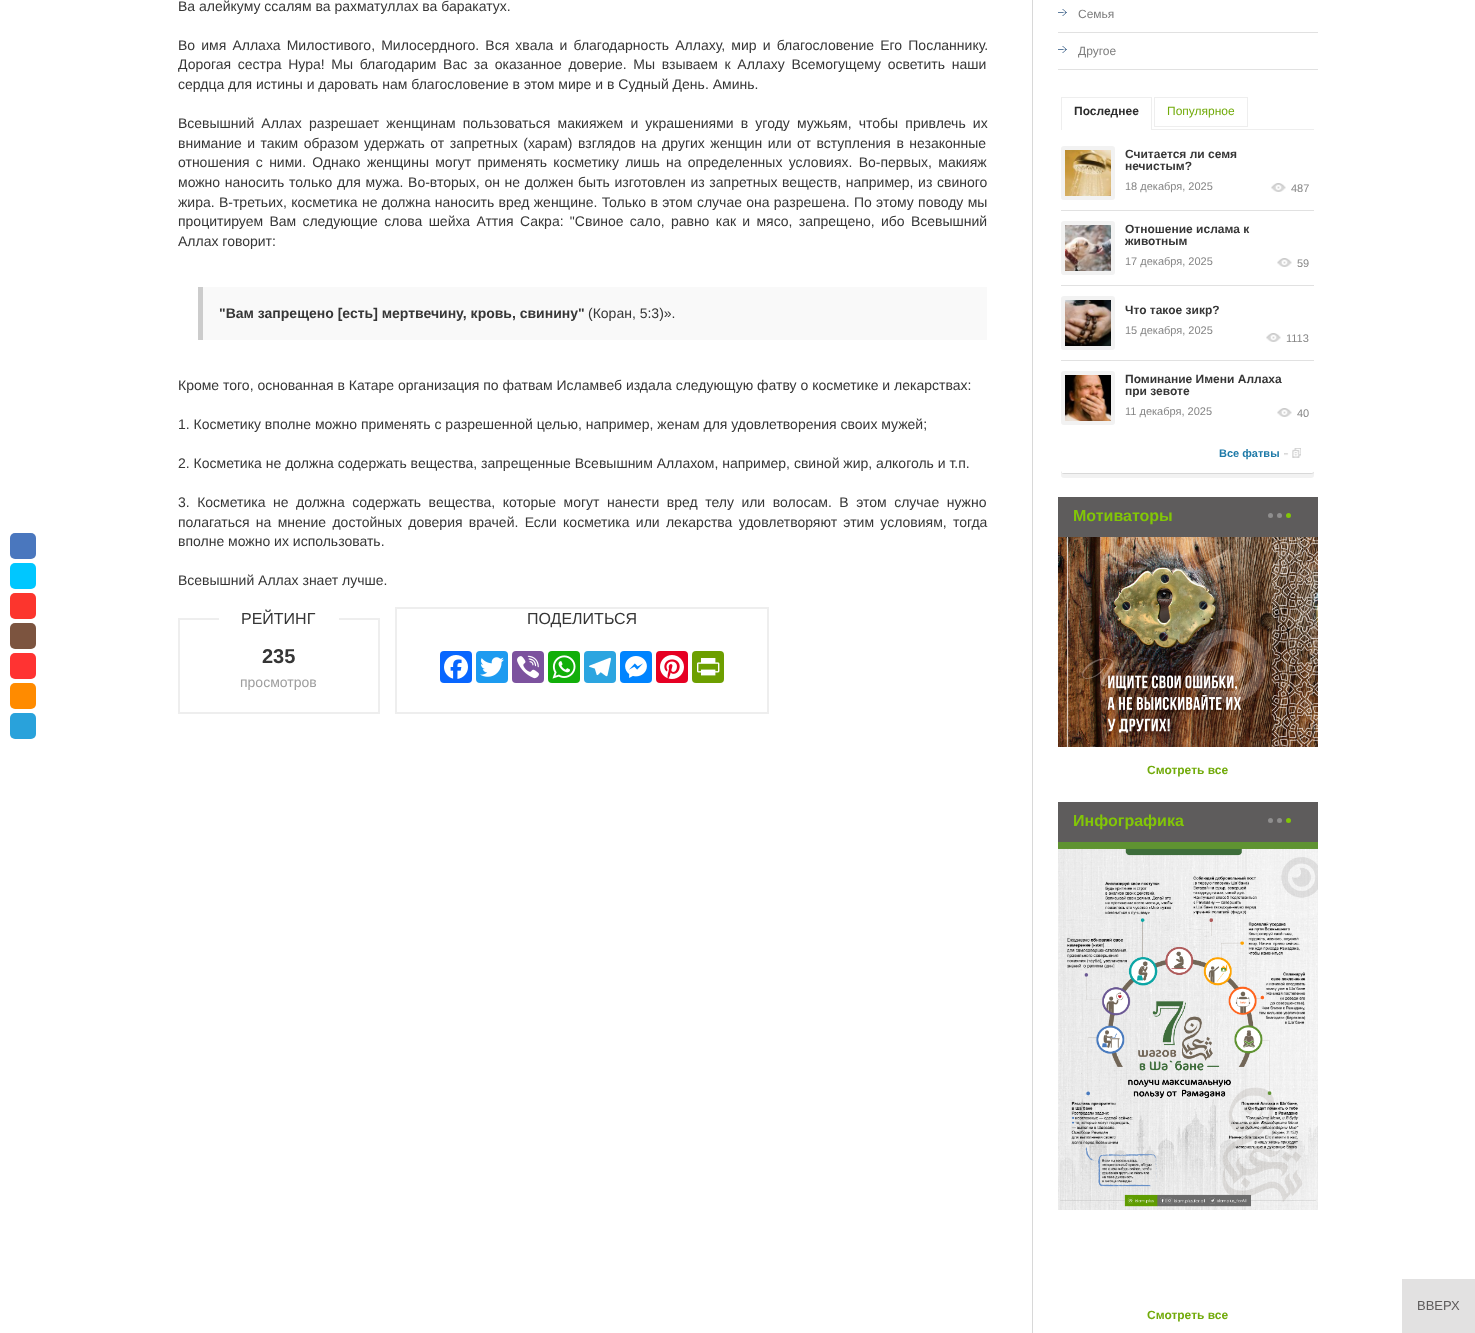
<!DOCTYPE html>
<meta charset="utf-8">
<style>body { margin: 0 } canvas { display: block }</style>
<canvas id="canvas" width="1475" height="1333"></canvas>
<img id="img1" src="img_01.png" hidden>
<img id="img2" src="img_02.png" hidden>
<img id="img3" src="img_03.png" hidden>
<img id="img4" src="img_04.png" hidden>
<img id="img5" src="img_05.png" hidden>
<img id="img6" src="img_06.png" hidden>
<img id="img7" src="img_07.png" hidden>
<img id="img8" src="img_08.png" hidden>
<img id="img9" src="img_09.png" hidden>
<img id="img10" src="img_10.png" hidden>
<img id="img11" src="img_11.png" hidden>
<img id="img12" src="img_12.png" hidden>
<img id="img13" src="img_13.png" hidden>
<img id="img14" src="img_14.png" hidden>
<img id="img15" src="img_15.png" hidden>
<img id="img16" src="img_16.png" hidden>
<img id="img17" src="img_17.png" hidden>
<img id="img18" src="img_18.png" hidden>
<script>
window.onload = function () {
	const canvas = document.getElementById("canvas");
	const ctx = canvas.getContext("2d");
	ctx.miterLimit = 4;
	ctx.fontKerning = "normal";
	function txt(s, x, y) {
		ctx.fillText(s, x, y);
	}
	function fill(x, y, w, h) {
		ctx.fillRect(x, y, w, h);
	}
	function round(x, y, w, h, r) {
		ctx.beginPath();
		ctx.roundRect(x, y, w, h, r);
		ctx.fill();
	}
	function img(id, x, y, w, h) {
		ctx.drawImage(document.getElementById(id), x, y, w, h);
	}

	ctx.fillStyle = "#FFFFFF";
	fill(0, 0, 1475, 1333);
	ctx.fillStyle = "#4A77BE";
	round(10, 533, 26, 26, 5);
	ctx.fillStyle = "#00C7FF";
	round(10, 563, 26, 26, 5);
	ctx.fillStyle = "#FC352D";
	round(10, 593, 26, 26, 5);
	ctx.fillStyle = "#7C543F";
	round(10, 623, 26, 26, 5);
	ctx.fillStyle = "#FF3332";
	round(10, 653, 26, 26, 5);
	ctx.fillStyle = "#FF8B00";
	round(10, 683, 26, 26, 5);
	ctx.fillStyle = "#29A2DB";
	round(10, 713, 26, 26, 5);
	ctx.fillStyle = "#D8D8D8";
	fill(1032, 0, 1, 1333);
	ctx.fillStyle = "#F9F9F9";
	fill(203, 287, 784, 53);
	ctx.fillStyle = "#CCCCCC";
	fill(198, 287, 5, 53);
	ctx.strokeStyle = "#EEEEEE";
	ctx.lineWidth = 2;
	ctx.strokeRect(179, 619, 200, 94);
	ctx.fillStyle = "#FFFFFF";
	fill(219, 618, 120, 2);
	ctx.strokeRect(396, 608, 372, 105);
	ctx.fillStyle = "#0866FF";
	round(440, 651, 32, 32, 4);
	img("img1", 444, 655, 24, 24);
	ctx.fillStyle = "#1D9BF0";
	round(476, 651, 32, 32, 4);
	img("img2", 480, 657, 24, 20);
	ctx.fillStyle = "#7C529E";
	round(512, 651, 32, 32, 4);
	img("img3", 517, 655, 22, 24);
	ctx.fillStyle = "#12AF0A";
	round(548, 651, 32, 32, 4);
	img("img4", 552, 655, 24, 24);
	ctx.fillStyle = "#2CA5E0";
	round(584, 651, 32, 32, 4);
	img("img5", 589, 657, 22, 20);
	ctx.fillStyle = "#0084FF";
	round(620, 651, 32, 32, 4);
	img("img6", 625, 656, 22, 22);
	ctx.fillStyle = "#E60023";
	round(656, 651, 32, 32, 4);
	img("img7", 660, 655, 24, 24);
	ctx.fillStyle = "#6D9F00";
	round(692, 651, 32, 32, 4);
	img("img8", 697, 658, 23, 18);
	ctx.fillStyle = "#E1E1E1";
	fill(1058, 32, 260, 1);
	img("img9", 1058, 9, 9, 7);
	fill(1058, 69, 260, 1);
	img("img9", 1058, 46, 9, 7);
	ctx.fillStyle = "#EEEEEE";
	fill(1061, 97, 91, 1);
	fill(1151, 97, 1, 33);
	fill(1061, 97, 1, 33);
	ctx.lineWidth = 1;
	ctx.strokeRect(1154.5, 97.5, 93, 29);
	ctx.fillStyle = "#F2F2F2";
	ctx.beginPath();
	ctx.moveTo(1061, 471);
	ctx.lineTo(1061, 475);
	ctx.bezierCurveTo(1061, 477, 1062, 478, 1064, 478);
	ctx.lineTo(1311, 478);
	ctx.bezierCurveTo(1313, 478, 1314, 477, 1314, 475);
	ctx.lineTo(1314, 471);
	ctx.bezierCurveTo(1314, 473, 1313, 474, 1311, 474);
	ctx.lineTo(1064, 474);
	ctx.bezierCurveTo(1062, 474, 1061, 473, 1061, 471);
	ctx.closePath();
	ctx.fill();
	ctx.fillStyle = "#EEEEEE";
	fill(1152, 129, 162, 1);
	ctx.fillStyle = "#D8D8D8";
	ctx.beginPath();
	ctx.moveTo(1064, 474);
	ctx.lineTo(1311, 474);
	ctx.bezierCurveTo(1313, 474, 1314, 473, 1314, 472);
	ctx.lineTo(1314, 471);
	ctx.lineTo(1314, 472);
	ctx.lineTo(1312, 473);
	ctx.lineTo(1062, 473);
	ctx.lineTo(1061, 471);
	ctx.bezierCurveTo(1061, 473, 1062, 474, 1064, 474);
	ctx.closePath();
	ctx.fill();
	ctx.beginPath();
	ctx.roundRect(1063, 148, 50, 50, 1);
	ctx.strokeStyle = "#F2F2F2";
	ctx.lineWidth = 4;
	ctx.stroke();
	img("img10", 1065, 150, 46, 46);
	img("img11", 1271, 183, 15, 9);
	ctx.fillStyle = "#E1E1E1";
	fill(1061, 210, 253, 1);
	ctx.beginPath();
	ctx.roundRect(1063, 223, 50, 50, 1);
	ctx.stroke();
	img("img12", 1065, 225, 46, 46);
	img("img13", 1277, 258, 15, 9);
	fill(1061, 285, 253, 1);
	ctx.beginPath();
	ctx.roundRect(1063, 298, 50, 50, 1);
	ctx.stroke();
	img("img14", 1065, 300, 46, 46);
	img("img11", 1266, 333, 15, 9);
	fill(1061, 360, 253, 1);
	ctx.beginPath();
	ctx.roundRect(1063, 373, 50, 50, 1);
	ctx.stroke();
	img("img15", 1065, 375, 46, 46);
	img("img13", 1277, 408, 15, 9);
	img("img16", 1284, 448, 17, 10);
	ctx.fillStyle = "#5E5C5C";
	fill(1058, 497, 260, 40);
	ctx.fillStyle = "#8F8E8E";
	ctx.beginPath();
	ctx.arc(1270.5, 515.5, 2.5, 0, Math.PI * 2);
	ctx.fill();
	ctx.beginPath();
	ctx.arc(1279.5, 515.5, 2.5, 0, Math.PI * 2);
	ctx.fill();
	ctx.fillStyle = "#82C607";
	ctx.beginPath();
	ctx.arc(1288.5, 515.5, 2.5, 0, Math.PI * 2);
	ctx.fill();
	img("img17", 1058, 537, 260, 210);
	ctx.fillStyle = "#5E5C5C";
	fill(1058, 802, 260, 40);
	ctx.fillStyle = "#8F8E8E";
	ctx.beginPath();
	ctx.arc(1270.5, 820.5, 2.5, 0, Math.PI * 2);
	ctx.fill();
	ctx.beginPath();
	ctx.arc(1279.5, 820.5, 2.5, 0, Math.PI * 2);
	ctx.fill();
	ctx.fillStyle = "#82C607";
	ctx.beginPath();
	ctx.arc(1288.5, 820.5, 2.5, 0, Math.PI * 2);
	ctx.fill();
	img("img18", 1058, 842, 260, 368);
	ctx.fillStyle = "#E2E1E1";
	fill(1402, 1279, 73, 54);
	ctx.font = "14px Liberation Sans";
	ctx.fillStyle = "#363636";
	txt("Ва алейкуму ссалям ва рахматуллах ва баракатух.", 178, 11);
	ctx.wordSpacing = "2.25px";
	txt("Во имя Аллаха Милостивого, Милосердного. Вся хвала и благодарность Аллаху, мир и благословение Его Посланнику.", 178, 50);
	ctx.wordSpacing = "2.75px";
	txt("Дорогая сестра Нура! Мы благодарим Вас за оказанное доверие. Мы взываем к Аллаху Всемогущему осветить наши", 178, 69);
	ctx.wordSpacing = "0px";
	txt("сердца для истины и даровать нам благословение в этом мире и в Судный День. Аминь.", 178, 89);
	ctx.wordSpacing = "3.25px";
	txt("Всевышний Аллах разрешает женщинам пользоваться макияжем и украшениями в угоду мужьям, чтобы привлечь их", 178, 128);
	ctx.wordSpacing = "1.6px";
	txt("внимание и таким образом удержать от запретных (харам) взглядов на других женщин или от вступления в незаконные", 178, 148);
	ctx.wordSpacing = "2.4px";
	txt("отношения с ними. Однако женщины могут применять косметику лишь на определенных условиях. Во-первых, макияж", 178, 167);
	ctx.wordSpacing = "0.75px";
	txt("можно наносить только для мужа. Во-вторых, он не должен быть изготовлен из запретных веществ, например, из свиного", 178, 187);
	ctx.wordSpacing = "0.4px";
	txt("жира. В-третьих, косметика не должна наносить вред женщине. Только в этом случае она разрешена. По этому поводу мы", 178, 207);
	ctx.wordSpacing = "2.4px";
	txt("процитируем Вам следующие слова шейха Аттия Сакра: \"Свиное сало, равно как и мясо, запрещено, ибо Всевышний", 178, 226);
	ctx.wordSpacing = "0px";
	txt("Аллах говорит:", 178, 246);
	ctx.font = "bold 14px Liberation Sans";
	txt("\"Вам запрещено [есть] мертвечину, кровь, свинину\"", 219, 318);
	ctx.font = "14px Liberation Sans";
	txt("(Коран, 5:3)».", 588, 318);
	txt("Кроме того, основанная в Катаре организация по фатвам Исламвеб издала следующую фатву о косметике и лекарствах:", 178, 390);
	txt("1. Косметику вполне можно применять с разрешенной целью, например, женам для удовлетворения своих мужей;", 178, 429);
	txt("2. Косметика не должна содержать вещества, запрещенные Всевышним Аллахом, например, свиной жир, алкоголь и т.п.", 178, 468);
	ctx.wordSpacing = "3.6px";
	txt("3. Косметика не должна содержать вещества, которые могут нанести вред телу или волосам. В этом случае нужно", 178, 507);
	ctx.wordSpacing = "2.4px";
	txt("полагаться на мнение достойных доверия врачей. Если косметика или лекарства удовлетворяют этим условиям, тогда", 178, 527);
	ctx.wordSpacing = "0px";
	txt("вполне можно их использовать.", 178, 546);
	txt("Всевышний Аллах знает лучше.", 178, 585);
	ctx.font = "16px Liberation Sans";
	txt("РЕЙТИНГ", 241, 624);
	ctx.font = "bold 20px Liberation Sans";
	txt("235", 262, 663);
	ctx.font = "14px Liberation Sans";
	ctx.fillStyle = "#9E9E9E";
	txt("просмотров", 240, 687);
	ctx.font = "16px Liberation Sans";
	ctx.fillStyle = "#363636";
	txt("ПОДЕЛИТЬСЯ", 527, 624);
	ctx.font = "12px Liberation Sans";
	ctx.fillStyle = "#7D7D7D";
	txt("Семья", 1078, 18);
	txt("Другое", 1078, 55);
	ctx.font = "bold 12px Liberation Sans";
	ctx.fillStyle = "#2B2B2B";
	txt("Последнее", 1074, 115);
	ctx.font = "12px Liberation Sans";
	ctx.fillStyle = "#72AB0B";
	txt("Популярное", 1167, 115);
	ctx.font = "bold 12px Liberation Sans";
	ctx.fillStyle = "#363636";
	txt("Считается ли семя", 1125, 158);
	txt("нечистым?", 1125, 170);
	ctx.font = "11px Liberation Sans";
	ctx.fillStyle = "#868686";
	txt("18 декабря, 2025", 1125, 190);
	txt("487", 1291, 192);
	ctx.font = "bold 12px Liberation Sans";
	ctx.fillStyle = "#363636";
	txt("Отношение ислама к", 1125, 233);
	txt("животным", 1125, 245);
	ctx.font = "11px Liberation Sans";
	ctx.fillStyle = "#868686";
	txt("17 декабря, 2025", 1125, 265);
	txt("59", 1297, 267);
	ctx.font = "bold 12px Liberation Sans";
	ctx.fillStyle = "#363636";
	txt("Что такое зикр?", 1125, 314);
	ctx.font = "11px Liberation Sans";
	ctx.fillStyle = "#868686";
	txt("15 декабря, 2025", 1125, 334);
	txt("1113", 1286, 342);
	ctx.font = "bold 12px Liberation Sans";
	ctx.fillStyle = "#363636";
	txt("Поминание Имени Аллаха", 1125, 383);
	ctx.save();
	ctx.beginPath();
	ctx.rect(1125, 373, 177, 24);
	ctx.clip();
	txt("при зевоте", 1125, 395);
	ctx.restore();
	ctx.font = "11px Liberation Sans";
	ctx.fillStyle = "#868686";
	txt("11 декабря, 2025", 1125, 415);
	txt("40", 1297, 417);
	ctx.font = "bold 11px Liberation Sans";
	ctx.fillStyle = "#1E7AA8";
	txt("Все фатвы", 1219, 457);
	ctx.font = "bold 16px Liberation Sans";
	ctx.fillStyle = "#82C607";
	txt("Мотиваторы", 1073, 521);
	ctx.font = "bold 12px Liberation Sans";
	ctx.fillStyle = "#72AB0B";
	txt("Смотреть все", 1147, 774);
	ctx.font = "bold 16px Liberation Sans";
	ctx.fillStyle = "#82C607";
	txt("Инфографика", 1073, 826);
	ctx.font = "bold 12px Liberation Sans";
	ctx.fillStyle = "#72AB0B";
	txt("Смотреть все", 1147, 1319);
	ctx.font = "13px Liberation Sans";
	ctx.fillStyle = "#5E5B5B";
	txt("ВВЕРХ", 1417, 1310);
};
</script>
